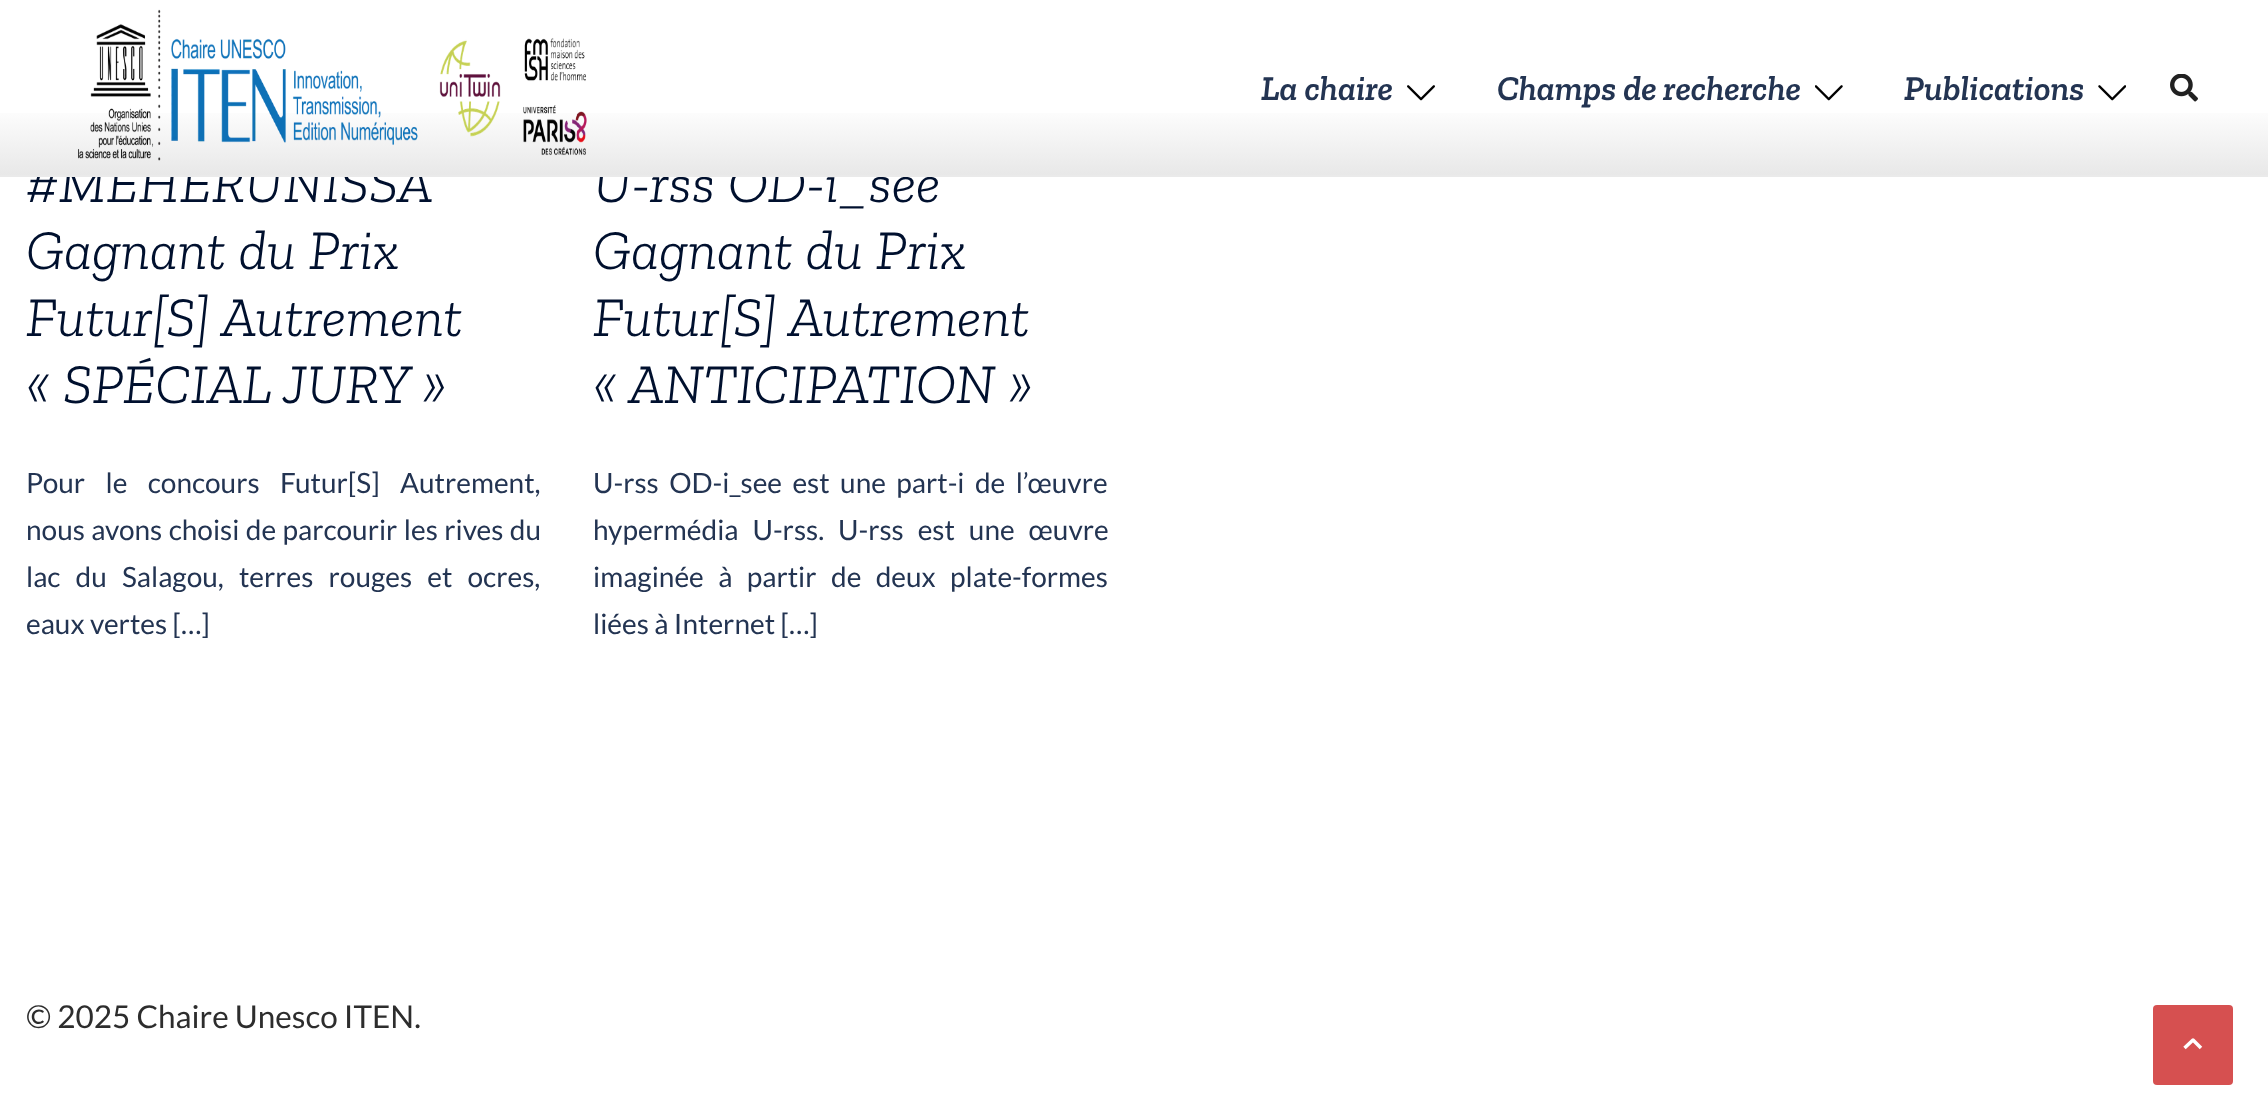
<!DOCTYPE html>
<meta charset="utf-8">
<style>body { margin: 0 } canvas { display: block }</style>
<canvas id="canvas" width="2268" height="1102"></canvas>
<img id="img1" src="img_02.png" hidden>
<img id="img2" src="img_03.png" hidden>
<img id="img3" src="img_04.png" hidden>
<img id="img4" src="img_05.png" hidden>
<img id="img5" src="img_01.png" hidden>
<script>
window.onload = function () {
	const canvas = document.getElementById("canvas");
	const ctx = canvas.getContext("2d");
	ctx.miterLimit = 4;
	ctx.fontKerning = "normal";
	function txt(s, x, y) {
		ctx.fillText(s, x, y);
	}
	function fill(x, y, w, h) {
		ctx.fillRect(x, y, w, h);
	}
	function round(x, y, w, h, r) {
		ctx.beginPath();
		ctx.roundRect(x, y, w, h, r);
		ctx.fill();
	}
	function img(id, x, y, w, h) {
		ctx.drawImage(document.getElementById(id), x, y, w, h);
	}
	let gradient;

	ctx.fillStyle = "#FFFFFF";
	fill(0, 0, 2268, 1102);
	img("img1", 1407, 85, 28, 16);
	img("img2", 1815, 85, 28, 16);
	img("img3", 2098, 85, 28, 16);
	img("img4", 2170, 74, 28, 28);
	ctx.fillStyle = "#D65050";
	round(2153, 1005, 80, 80, 4);
	ctx.beginPath();
	ctx.moveTo(2184.5, 1048);
	ctx.lineTo(2193, 1040);
	ctx.lineTo(2201, 1048);
	ctx.strokeStyle = "#FFFFFF";
	ctx.lineWidth = 3.5;
	ctx.lineJoin = "round";
	ctx.stroke();
	ctx.font = "italic 600 35px Zilla Slab";
	ctx.fillStyle = "#233452";
	txt("La chaire", 1261, 100);
	txt("Champs de recherche", 1497, 100);
	txt("Publications", 1904, 100);
	ctx.font = "italic 300 56px Zilla Slab";
	ctx.fillStyle = "#00102E";
	txt("#MEHERUNISSA", 26, 202);
	txt("Gagnant du Prix", 26, 269);
	txt("Futur[S] Autrement", 26, 336);
	txt("« SPÉCIAL JURY »", 26, 403);
	ctx.wordSpacing = "15px";
	ctx.font = "28px Lato";
	ctx.fillStyle = "#233452";
	txt("Pour le concours Futur[S] Autrement,", 26, 493);
	ctx.wordSpacing = "1px";
	txt("nous avons choisi de parcourir les rives du", 26, 540);
	ctx.wordSpacing = "9.75px";
	txt("lac du Salagou, terres rouges et ocres,", 26, 587);
	ctx.wordSpacing = "0px";
	txt("eaux vertes […]", 26, 634);
	ctx.font = "italic 300 56px Zilla Slab";
	ctx.fillStyle = "#00102E";
	txt("U-rss OD-i_see", 593, 202);
	gradient = ctx.createLinearGradient(1134, 0, 1134, 175);
	gradient.addColorStop(0.6, "#FFFFFF");
	gradient.addColorStop(1, "#E8E8E8");
	ctx.fillStyle = gradient;
	fill(0, 113, 2268, 62);
	img("img5", 78, 9, 509, 152);
	ctx.fillStyle = "#EAEAEA";
	fill(0, 175, 2268, 2);
	ctx.fillStyle = "#00102E";
	txt("Gagnant du Prix", 593, 269);
	txt("Futur[S] Autrement", 593, 336);
	txt("« ANTICIPATION »", 593, 403);
	ctx.wordSpacing = "5px";
	ctx.font = "28px Lato";
	ctx.fillStyle = "#233452";
	txt("U-rss OD-i_see est une part-i de l’œuvre", 593, 493);
	ctx.wordSpacing = "8.5px";
	txt("hypermédia U-rss. U-rss est une œuvre", 593, 540);
	ctx.wordSpacing = "9px";
	txt("imaginée à partir de deux plate-formes", 593, 587);
	ctx.wordSpacing = "0px";
	txt("liées à Internet […]", 593, 634);
	ctx.font = "31.5px Lato";
	ctx.fillStyle = "#2D2D2D";
	txt("© 2025 Chaire Unesco ITEN.", 26, 1028);
};
</script>
